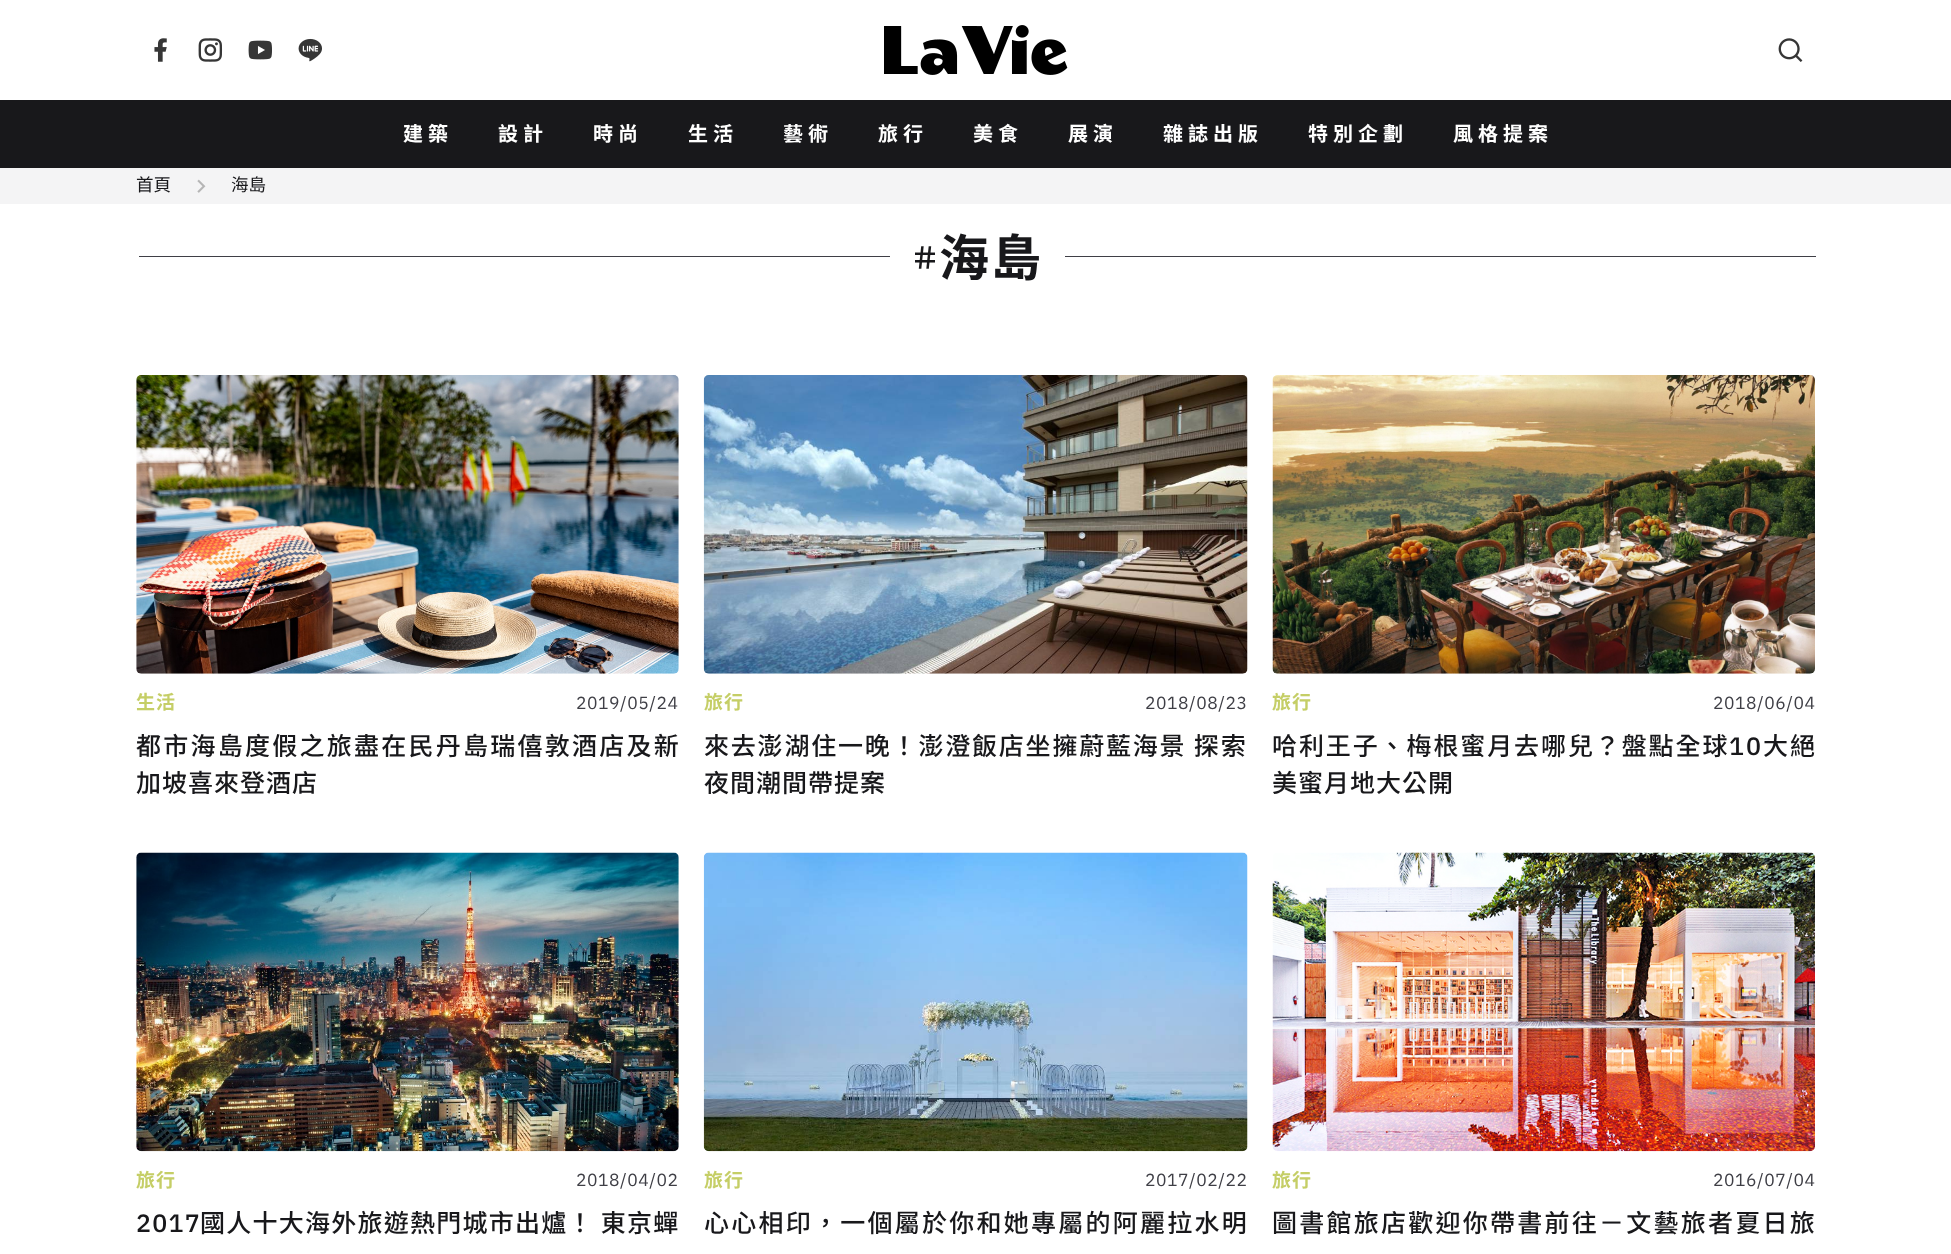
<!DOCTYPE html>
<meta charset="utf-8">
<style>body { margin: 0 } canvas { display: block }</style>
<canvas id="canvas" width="1951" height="1254"></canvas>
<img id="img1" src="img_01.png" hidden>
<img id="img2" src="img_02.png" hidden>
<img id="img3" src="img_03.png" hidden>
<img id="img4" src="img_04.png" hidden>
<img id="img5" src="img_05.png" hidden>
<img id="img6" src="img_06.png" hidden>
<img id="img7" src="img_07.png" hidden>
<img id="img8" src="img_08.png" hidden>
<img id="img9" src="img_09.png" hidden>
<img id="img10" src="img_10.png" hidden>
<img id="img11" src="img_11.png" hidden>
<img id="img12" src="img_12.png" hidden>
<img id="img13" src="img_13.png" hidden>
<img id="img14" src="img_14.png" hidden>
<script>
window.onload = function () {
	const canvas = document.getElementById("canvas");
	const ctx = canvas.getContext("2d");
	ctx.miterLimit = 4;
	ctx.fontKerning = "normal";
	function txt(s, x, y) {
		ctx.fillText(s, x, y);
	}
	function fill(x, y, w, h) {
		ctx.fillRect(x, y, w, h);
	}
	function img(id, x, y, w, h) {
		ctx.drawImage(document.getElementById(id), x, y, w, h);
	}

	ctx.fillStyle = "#FFFFFF";
	fill(0, 0, 1951, 1254);
	img("img1", 154, 38, 13, 24);
	img("img2", 198, 38, 25, 24);
	img("img3", 248, 40, 24, 20);
	img("img4", 298, 38, 24, 24);
	img("img5", 884, 25, 184, 50);
	img("img6", 1778, 38, 25, 24);
	ctx.fillStyle = "#18181B";
	fill(0, 100, 1951, 68);
	ctx.fillStyle = "#F4F4F5";
	fill(0, 168, 1951, 36);
	img("img7", 197, 179, 9, 14);
	ctx.fillStyle = "#3F3F46";
	fill(139, 256, 751, 1);
	img("img8", 915, 246, 20, 23);
	fill(1065, 256, 751, 1);
	img("img9", 136, 375, 543, 299);
	img("img10", 703, 375, 545, 299);
	img("img11", 1272, 375, 543, 299);
	img("img12", 136, 852, 543, 300);
	img("img13", 703, 852, 545, 300);
	img("img14", 1272, 852, 543, 300);
	ctx.letterSpacing = "5px";
	ctx.font = "bold 20px Noto Sans TC";
	ctx.fillStyle = "#FFFFFF";
	txt("建築", 403, 141);
	txt("設計", 498, 141);
	txt("時尚", 593, 141);
	txt("生活", 688, 141);
	txt("藝術", 783, 141);
	txt("旅行", 878, 141);
	txt("美食", 973, 141);
	txt("展演", 1068, 141);
	txt("雜誌出版", 1163, 141);
	txt("特別企劃", 1308, 141);
	txt("風格提案", 1453, 141);
	ctx.letterSpacing = "0px";
	ctx.font = "17.5px Noto Sans TC";
	ctx.fillStyle = "#18181B";
	txt("首頁", 136, 191);
	txt("海島", 231, 191);
	ctx.letterSpacing = "2px";
	ctx.font = "bold 50px Noto Sans TC";
	txt("海島", 939, 276);
	ctx.letterSpacing = "1px";
	ctx.font = "bold 19px Noto Sans TC";
	ctx.fillStyle = "#C5CE66";
	txt("生活", 136, 709);
	ctx.letterSpacing = "0.5px";
	ctx.font = "17.5px IBM Plex Sans";
	ctx.fillStyle = "#3F3F46";
	txt("2019/05/24", 576, 709);
	ctx.letterSpacing = "2.25px";
	ctx.font = "500 25px Noto Sans TC";
	ctx.fillStyle = "#18181B";
	txt("都市海島度假之旅盡在民丹島瑞僖敦酒店及新", 136, 755);
	ctx.letterSpacing = "1px";
	txt("加坡喜來登酒店", 136, 792);
	ctx.font = "bold 19px Noto Sans TC";
	ctx.fillStyle = "#C5CE66";
	txt("旅行", 704, 709);
	ctx.letterSpacing = "0.5px";
	ctx.font = "17.5px IBM Plex Sans";
	ctx.fillStyle = "#3F3F46";
	txt("2018/08/23", 1145, 709);
	ctx.letterSpacing = "1.8px";
	ctx.font = "500 25px Noto Sans TC";
	ctx.fillStyle = "#18181B";
	txt("來去澎湖住一晚！澎澄飯店坐擁蔚藍海景 探索", 704, 755);
	ctx.letterSpacing = "1px";
	txt("夜間潮間帶提案", 704, 792);
	ctx.font = "bold 19px Noto Sans TC";
	ctx.fillStyle = "#C5CE66";
	txt("旅行", 1272, 709);
	ctx.letterSpacing = "0.5px";
	ctx.font = "17.5px IBM Plex Sans";
	ctx.fillStyle = "#3F3F46";
	txt("2018/06/04", 1713, 709);
	ctx.letterSpacing = "1.9px";
	ctx.font = "500 25px Noto Sans TC";
	ctx.fillStyle = "#18181B";
	txt("哈利王子、梅根蜜月去哪兒？盤點全球", 1272, 755);
	ctx.font = "500 25px IBM Plex Sans";
	txt("10", 1729, 755);
	ctx.font = "500 25px Noto Sans TC";
	txt("大絕", 1763, 755);
	ctx.letterSpacing = "1px";
	txt("美蜜月地大公開", 1272, 792);
	ctx.font = "bold 19px Noto Sans TC";
	ctx.fillStyle = "#C5CE66";
	txt("旅行", 136, 1187);
	ctx.letterSpacing = "0.5px";
	ctx.font = "17.5px IBM Plex Sans";
	ctx.fillStyle = "#3F3F46";
	txt("2018/04/02", 576, 1186);
	ctx.letterSpacing = "1.25px";
	ctx.font = "500 25px IBM Plex Sans";
	ctx.fillStyle = "#18181B";
	txt("2017", 136, 1232);
	ctx.font = "500 25px Noto Sans TC";
	txt("國人十大海外旅遊熱門城市出爐！ 東京蟬", 200, 1232);
	ctx.letterSpacing = "1px";
	ctx.font = "bold 19px Noto Sans TC";
	ctx.fillStyle = "#C5CE66";
	txt("旅行", 704, 1187);
	ctx.letterSpacing = "0.5px";
	ctx.font = "17.5px IBM Plex Sans";
	ctx.fillStyle = "#3F3F46";
	txt("2017/02/22", 1145, 1186);
	ctx.letterSpacing = "2.25px";
	ctx.font = "500 25px Noto Sans TC";
	ctx.fillStyle = "#18181B";
	txt("心心相印，一個屬於你和她專屬的阿麗拉水明", 704, 1232);
	ctx.letterSpacing = "1px";
	ctx.font = "bold 19px Noto Sans TC";
	ctx.fillStyle = "#C5CE66";
	txt("旅行", 1272, 1187);
	ctx.letterSpacing = "0.5px";
	ctx.font = "17.5px IBM Plex Sans";
	ctx.fillStyle = "#3F3F46";
	txt("2016/07/04", 1713, 1186);
	ctx.letterSpacing = "2.25px";
	ctx.font = "500 25px Noto Sans TC";
	ctx.fillStyle = "#18181B";
	txt("圖書館旅店歡迎你帶書前往－文藝旅者夏日旅", 1272, 1232);
};
</script>
